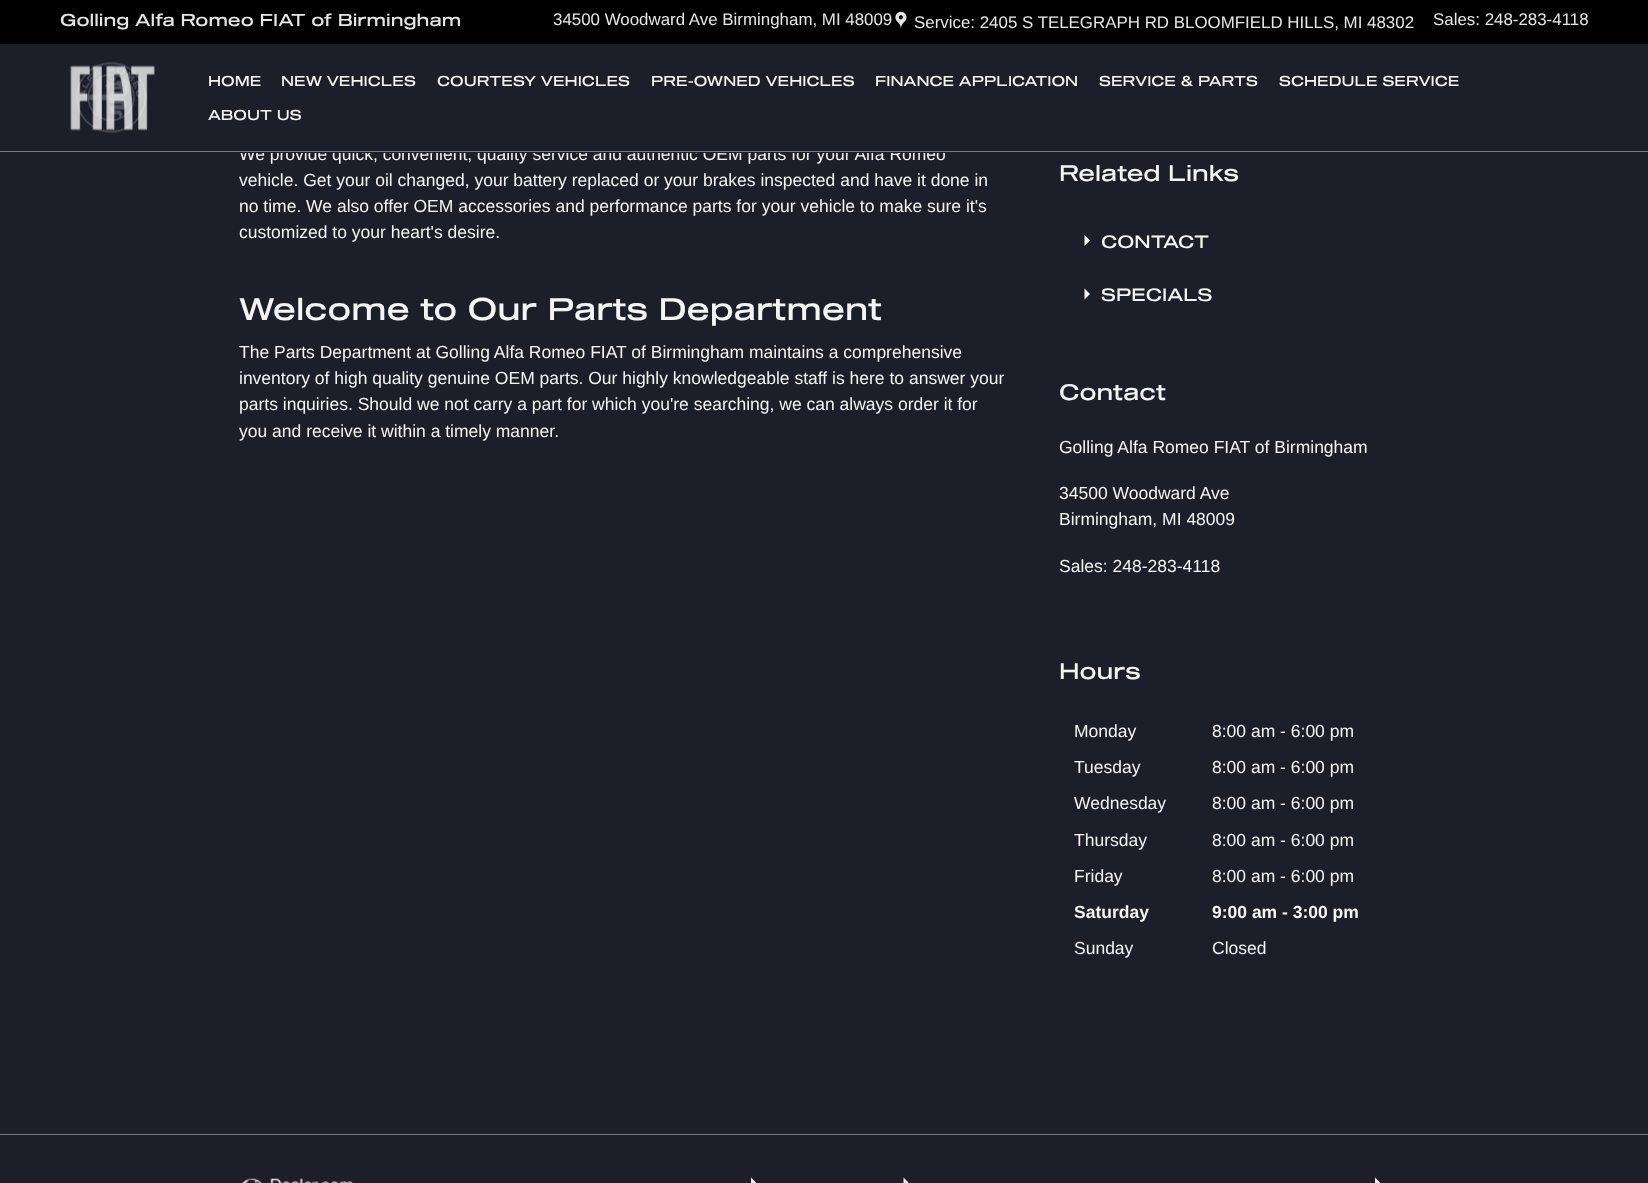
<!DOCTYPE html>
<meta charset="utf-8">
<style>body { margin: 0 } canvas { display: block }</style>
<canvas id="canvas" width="1648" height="1183"></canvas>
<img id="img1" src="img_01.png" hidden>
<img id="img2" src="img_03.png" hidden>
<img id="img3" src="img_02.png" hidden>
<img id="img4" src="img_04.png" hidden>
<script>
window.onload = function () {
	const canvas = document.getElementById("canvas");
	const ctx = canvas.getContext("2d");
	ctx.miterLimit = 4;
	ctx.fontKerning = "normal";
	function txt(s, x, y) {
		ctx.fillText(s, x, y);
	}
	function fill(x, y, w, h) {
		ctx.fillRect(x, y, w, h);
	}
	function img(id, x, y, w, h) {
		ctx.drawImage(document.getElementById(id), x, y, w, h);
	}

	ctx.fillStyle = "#1C1F2A";
	fill(0, 0, 1648, 1183);
	ctx.fillStyle = "#000000";
	fill(0, 0, 1648, 44);
	img("img1", 895, 11, 12, 18);
	img("img2", 70, 65, 85, 66);
	img("img3", 76, 62, 71, 71);
	ctx.fillStyle = "#F4F4F4";
	ctx.beginPath();
	ctx.moveTo(1084.5, 235);
	ctx.lineTo(1084.5, 246);
	ctx.lineTo(1090, 240.5);
	ctx.closePath();
	ctx.fill();
	ctx.beginPath();
	ctx.moveTo(1084.5, 288.5);
	ctx.lineTo(1084.5, 299.5);
	ctx.lineTo(1090, 294);
	ctx.closePath();
	ctx.fill();
	ctx.fillStyle = "#77797F";
	fill(0, 1134, 1648, 1);
	img("img4", 242, 1178, 111, 5);
	ctx.fillStyle = "#F4F4F4";
	ctx.beginPath();
	ctx.moveTo(751, 1177.5);
	ctx.lineTo(751, 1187.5);
	ctx.lineTo(756, 1182.5);
	ctx.closePath();
	ctx.fill();
	ctx.beginPath();
	ctx.moveTo(903.5, 1177.5);
	ctx.lineTo(903.5, 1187.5);
	ctx.lineTo(908.5, 1182.5);
	ctx.closePath();
	ctx.fill();
	ctx.beginPath();
	ctx.moveTo(1375, 1177.5);
	ctx.lineTo(1375, 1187.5);
	ctx.lineTo(1380, 1182.5);
	ctx.closePath();
	ctx.fill();
	ctx.font = "900 16.9px 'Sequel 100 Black'";
	ctx.fillStyle = "#E6E6E6";
	txt("Golling Alfa Romeo FIAT of Birmingham", 60, 26);
	ctx.font = "16.9px Liberation Sans";
	txt("34500 Woodward Ave Birmingham, MI 48009", 553, 25);
	txt("Service: 2405 S TELEGRAPH RD BLOOMFIELD HILLS, MI 48302", 914, 28);
	txt("Sales: 248-283-4118", 1433, 25);
	ctx.font = "900 14px 'Sequel 100 Black'";
	ctx.fillStyle = "#F4F4F4";
	txt("HOME", 208, 86);
	txt("NEW VEHICLES", 281, 86);
	txt("COURTESY VEHICLES", 437, 86);
	txt("PRE-OWNED VEHICLES", 651, 86);
	txt("FINANCE APPLICATION", 875, 86);
	txt("SERVICE & PARTS", 1099, 86);
	txt("SCHEDULE SERVICE", 1279, 86);
	txt("ABOUT US", 208, 120);
	ctx.font = "17.5px Liberation Sans";
	txt("We provide quick, convenient, quality service and authentic OEM parts for your Alfa Romeo", 239, 160);
	ctx.fillStyle = "#1C1F2A";
	fill(239, 147, 707, 6);
	ctx.fillStyle = "#77797F";
	fill(0, 151, 1648, 1);
	ctx.fillStyle = "#F4F4F4";
	txt("vehicle. Get your oil changed, your battery replaced or your brakes inspected and have it done in", 239, 186);
	txt("no time. We also offer OEM accessories and performance parts for your vehicle to make sure it's", 239, 212);
	txt("customized to your heart's desire.", 239, 238);
	ctx.font = "900 30.6px 'Sequel 100 Black'";
	txt("Welcome to Our Parts Department", 239, 320);
	ctx.font = "17.5px Liberation Sans";
	txt("The Parts Department at Golling Alfa Romeo FIAT of Birmingham maintains a comprehensive", 239, 358);
	txt("inventory of high quality genuine OEM parts. Our highly knowledgeable staff is here to answer your", 239, 384);
	txt("parts inquiries. Should we not carry a part for which you're searching, we can always order it for", 239, 410);
	txt("you and receive it within a timely manner.", 239, 437);
	ctx.font = "900 22px 'Sequel 100 Black'";
	txt("Related Links", 1059, 181);
	ctx.font = "900 17.5px 'Sequel 100 Black'";
	txt("CONTACT", 1101, 248);
	txt("SPECIALS", 1101, 301);
	ctx.font = "900 22px 'Sequel 100 Black'";
	txt("Contact", 1059, 400);
	ctx.font = "17.5px Liberation Sans";
	txt("Golling Alfa Romeo FIAT of Birmingham", 1059, 453);
	txt("34500 Woodward Ave", 1059, 499);
	txt("Birmingham, MI 48009", 1059, 525);
	txt("Sales: 248-283-4118", 1059, 572);
	ctx.font = "900 22px 'Sequel 100 Black'";
	txt("Hours", 1059, 679);
	ctx.font = "17.5px Liberation Sans";
	txt("Monday", 1074, 737);
	txt("8:00 am - 6:00 pm", 1212, 737);
	txt("Tuesday", 1074, 773);
	txt("8:00 am - 6:00 pm", 1212, 773);
	txt("Wednesday", 1074, 809);
	txt("8:00 am - 6:00 pm", 1212, 809);
	txt("Thursday", 1074, 846);
	txt("8:00 am - 6:00 pm", 1212, 846);
	txt("Friday", 1074, 882);
	txt("8:00 am - 6:00 pm", 1212, 882);
	ctx.font = "bold 17.5px Liberation Sans";
	txt("Saturday", 1074, 918);
	txt("9:00 am - 3:00 pm", 1212, 918);
	ctx.font = "17.5px Liberation Sans";
	txt("Sunday", 1074, 954);
	txt("Closed", 1212, 954);
};
</script>
